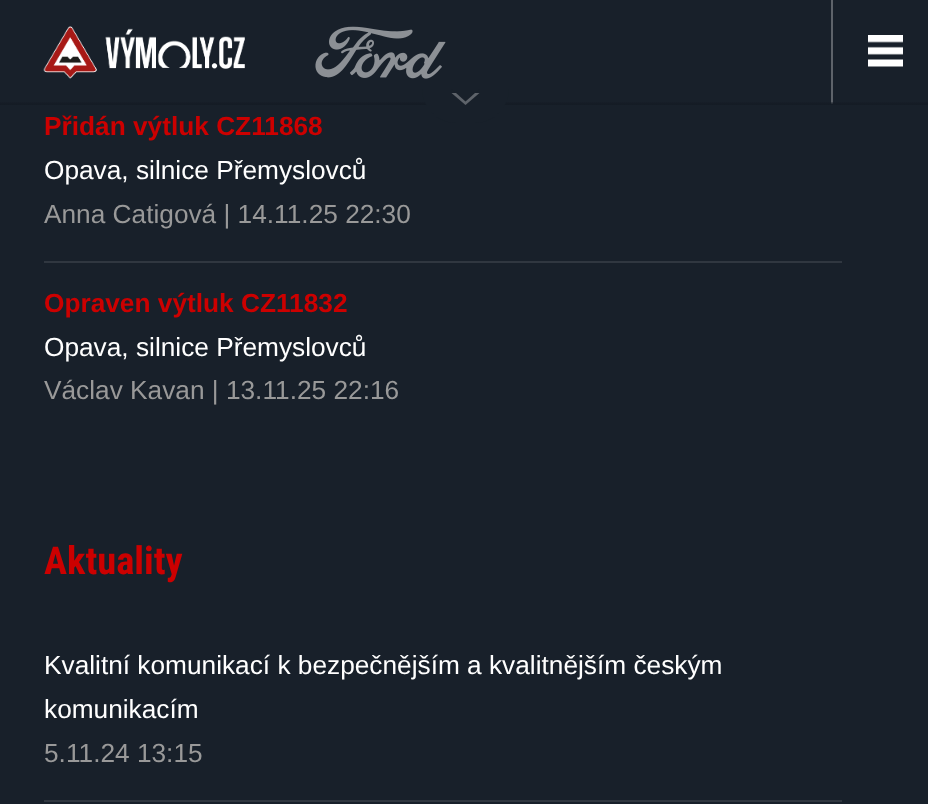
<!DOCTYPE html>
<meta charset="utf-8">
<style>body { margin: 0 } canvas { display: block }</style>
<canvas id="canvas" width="928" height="804"></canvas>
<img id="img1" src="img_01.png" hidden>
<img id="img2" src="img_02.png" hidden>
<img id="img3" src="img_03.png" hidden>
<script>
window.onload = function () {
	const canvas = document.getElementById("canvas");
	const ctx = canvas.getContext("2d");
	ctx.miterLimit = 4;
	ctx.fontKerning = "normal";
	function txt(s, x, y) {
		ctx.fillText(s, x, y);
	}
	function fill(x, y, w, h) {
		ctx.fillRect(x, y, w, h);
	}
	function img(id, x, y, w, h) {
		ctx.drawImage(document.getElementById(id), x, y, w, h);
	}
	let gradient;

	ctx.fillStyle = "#18202A";
	fill(0, 0, 928, 804);
	img("img1", 43, 26, 202, 53);
	img("img2", 315, 26, 131, 53);
	ctx.fillStyle = "#5E636A";
	fill(831, 0, 2, 105);
	img("img3", 868, 35, 35, 32);
	gradient = ctx.createLinearGradient(465, 101, 465, 105);
	gradient.addColorStop(0, "rgba(20, 27, 36, 0)");
	gradient.addColorStop(0.85, "#141B24");
	gradient.addColorStop(1, "#18202A");
	ctx.fillStyle = gradient;
	fill(0, 102, 928, 3);
	ctx.fillStyle = "#18202A";
	ctx.beginPath();
	ctx.roundRect(422, 89, 87, 34, [0, 0, 43.5, 43.5]);
	ctx.fill();
	ctx.fillStyle = "#5E636A";
	ctx.beginPath();
	ctx.moveTo(451.5, 93);
	ctx.lineTo(479.5, 93);
	ctx.lineTo(465.5, 105);
	ctx.closePath();
	ctx.fill();
	ctx.fillStyle = "#18202A";
	ctx.beginPath();
	ctx.moveTo(451.5, 89);
	ctx.lineTo(479.5, 89);
	ctx.lineTo(465.5, 101.5);
	ctx.closePath();
	ctx.fill();
	ctx.fillStyle = "#303740";
	fill(44, 261, 798, 2);
	fill(44, 800, 798, 2);
	ctx.font = "bold 26.25px Liberation Sans";
	ctx.fillStyle = "#CC0000";
	txt("Přidán výtluk CZ11868", 44, 135);
	ctx.font = "26.25px Liberation Sans";
	ctx.fillStyle = "#FFFFFF";
	txt("Opava, silnice Přemyslovců", 44, 179);
	ctx.fillStyle = "#999999";
	txt("Anna Catigová | 14.11.25 22:30", 44, 223);
	ctx.font = "bold 26.25px Liberation Sans";
	ctx.fillStyle = "#CC0000";
	txt("Opraven výtluk CZ11832", 44, 312);
	ctx.font = "26.25px Liberation Sans";
	ctx.fillStyle = "#FFFFFF";
	txt("Opava, silnice Přemyslovců", 44, 356);
	ctx.fillStyle = "#999999";
	txt("Václav Kavan | 13.11.25 22:16", 44, 399);
	ctx.font = "bold 38.5px Roboto Condensed";
	ctx.fillStyle = "#CC0000";
	txt("Aktuality", 44, 574);
	ctx.font = "26.25px Liberation Sans";
	ctx.fillStyle = "#FFFFFF";
	txt("Kvalitní komunikací k bezpečnějším a kvalitnějším českým", 44, 674);
	txt("komunikacím", 44, 718);
	ctx.fillStyle = "#999999";
	txt("5.11.24 13:15", 44, 762);
};
</script>
